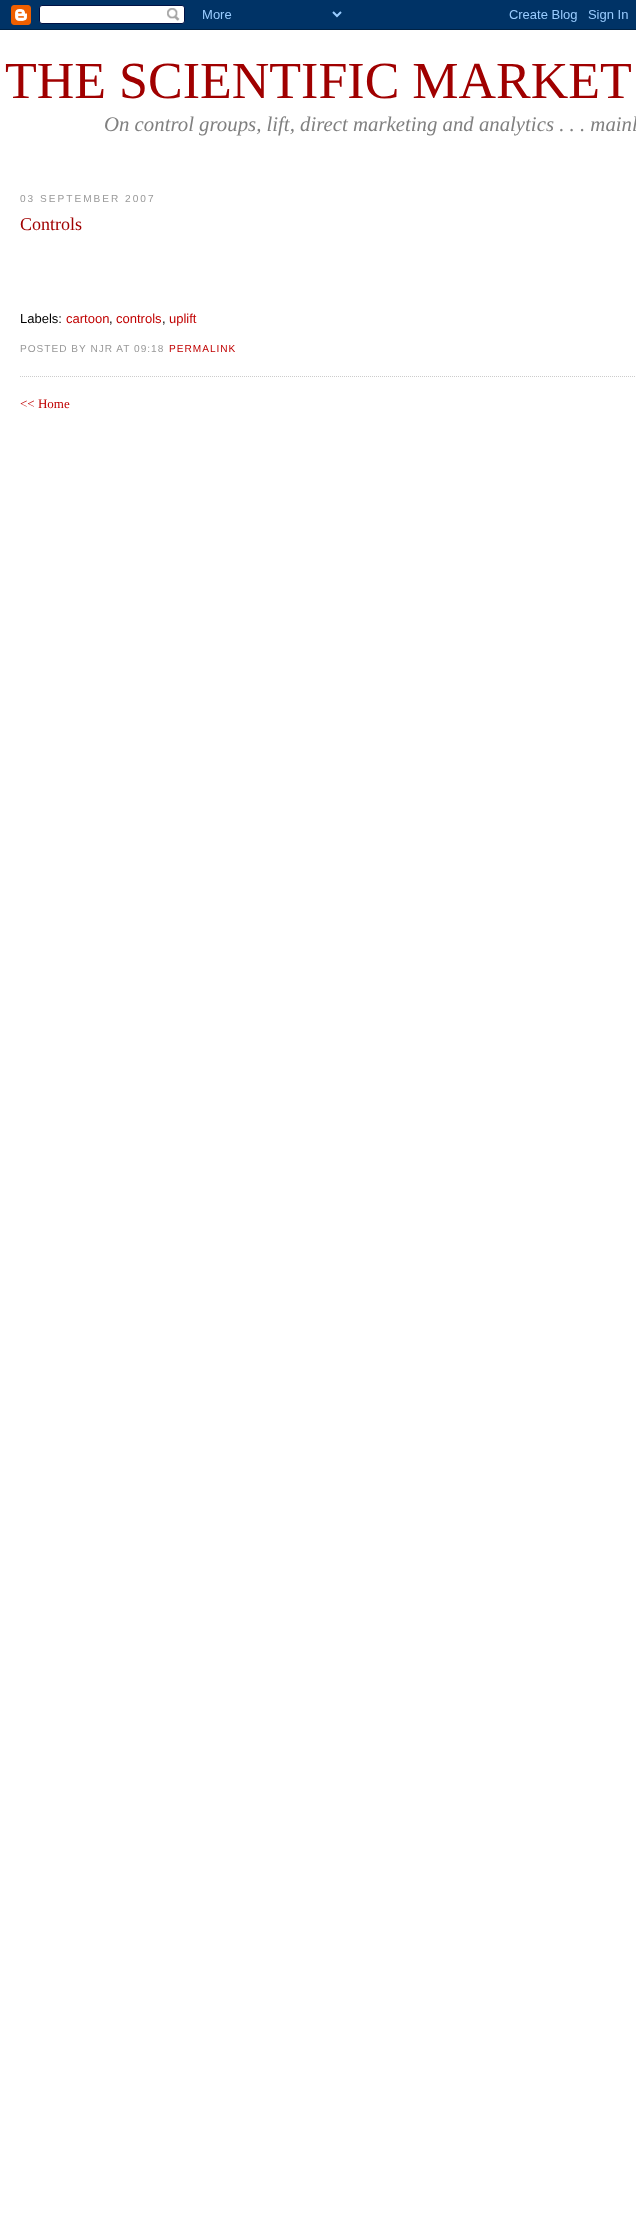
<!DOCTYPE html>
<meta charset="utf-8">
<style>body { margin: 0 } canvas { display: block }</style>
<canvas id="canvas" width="636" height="2218"></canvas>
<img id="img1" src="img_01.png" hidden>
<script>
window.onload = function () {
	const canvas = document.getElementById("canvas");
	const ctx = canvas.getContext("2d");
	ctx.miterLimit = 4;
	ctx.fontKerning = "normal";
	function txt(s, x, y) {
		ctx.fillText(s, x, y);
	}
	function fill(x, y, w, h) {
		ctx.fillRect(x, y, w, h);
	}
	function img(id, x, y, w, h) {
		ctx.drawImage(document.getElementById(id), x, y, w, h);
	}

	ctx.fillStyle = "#FFFFFF";
	fill(0, 0, 636, 2218);
	img("img1", 0, 0, 636, 30);
	ctx.beginPath();
	ctx.moveTo(20, 376.5);
	ctx.lineTo(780, 376.5);
	ctx.strokeStyle = "#CCCCCC";
	ctx.setLineDash([1, 1]);
	ctx.stroke();
	ctx.font = "52px Liberation Serif";
	ctx.fillStyle = "#A00000";
	txt("THE SCIENTIFIC MARKET", 5, 98);
	ctx.font = "italic 20.8px Liberation Serif";
	ctx.fillStyle = "#808080";
	txt("On control groups, lift, direct marketing and analytics . . . mainl", 104, 131);
	ctx.letterSpacing = "2px";
	ctx.font = "10.1px Liberation Sans";
	ctx.fillStyle = "#999999";
	txt("03 SEPTEMBER 2007", 20, 202);
	ctx.letterSpacing = "0px";
	ctx.font = "18px Liberation Serif";
	ctx.fillStyle = "#A00000";
	txt("Controls", 20, 230);
	ctx.font = "13px Liberation Sans";
	ctx.fillStyle = "#000000";
	txt("Labels:", 20, 323);
	ctx.fillStyle = "#C00000";
	txt("cartoon", 66, 323);
	ctx.fillStyle = "#000000";
	txt(",", 109, 323);
	ctx.fillStyle = "#C00000";
	txt("controls", 116, 323);
	ctx.fillStyle = "#000000";
	txt(",", 162, 323);
	ctx.fillStyle = "#C00000";
	txt("uplift", 169, 323);
	ctx.letterSpacing = "1px";
	ctx.font = "10.1px Liberation Sans";
	ctx.fillStyle = "#999999";
	txt("POSTED BY NJR AT 09:18", 20, 352);
	ctx.fillStyle = "#C00000";
	txt("PERMALINK", 169, 352);
	ctx.letterSpacing = "0px";
	ctx.font = "13px Liberation Serif";
	txt("<< Home", 20, 408);
};
</script>
